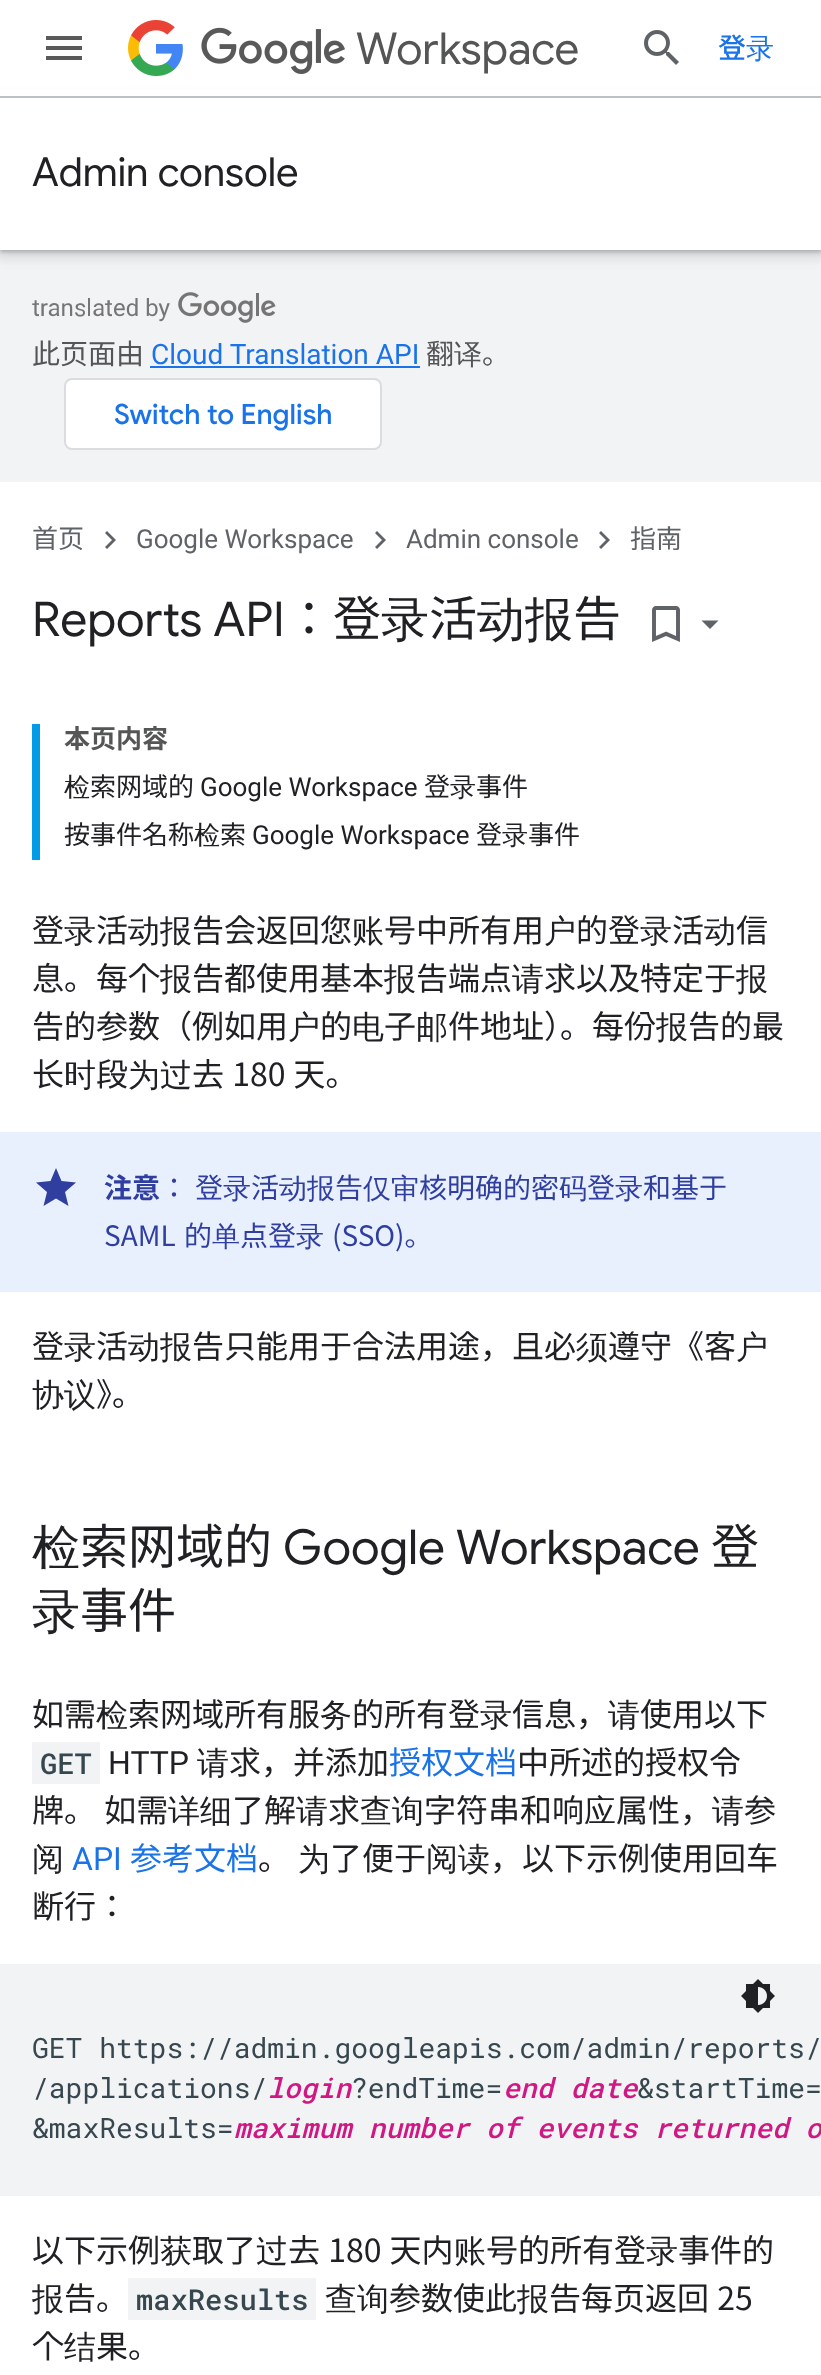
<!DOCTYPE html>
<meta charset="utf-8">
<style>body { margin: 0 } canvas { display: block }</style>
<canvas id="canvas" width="821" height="2375"></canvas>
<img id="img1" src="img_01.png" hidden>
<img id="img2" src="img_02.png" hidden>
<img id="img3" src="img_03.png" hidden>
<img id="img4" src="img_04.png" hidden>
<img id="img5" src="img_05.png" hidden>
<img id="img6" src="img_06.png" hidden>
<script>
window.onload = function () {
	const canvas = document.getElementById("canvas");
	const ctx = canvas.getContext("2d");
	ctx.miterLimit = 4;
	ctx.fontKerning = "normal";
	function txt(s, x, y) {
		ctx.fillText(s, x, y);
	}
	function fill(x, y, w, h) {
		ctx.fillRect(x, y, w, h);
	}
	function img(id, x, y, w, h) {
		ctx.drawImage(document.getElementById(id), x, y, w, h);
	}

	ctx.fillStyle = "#FFFFFF";
	fill(0, 0, 821, 2375);
	ctx.fillStyle = "#F1F3F4";
	fill(0, 250, 821, 232);
	ctx.fillStyle = "rgba(60, 64, 67, 0.15)";
	ctx.filter = "blur(6px)";
	ctx.beginPath();
	ctx.rect(-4, 98, 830, 160);
	ctx.fill();
	ctx.filter = "none";
	ctx.fillStyle = "rgba(60, 64, 67, 0.3)";
	ctx.filter = "blur(2px)";
	ctx.beginPath();
	ctx.rect(0, 100, 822, 152);
	ctx.fill();
	ctx.filter = "none";
	ctx.fillStyle = "#FFFFFF";
	fill(0, 90, 821, 6);
	ctx.fillStyle = "#BDC1C6";
	fill(0, 96, 821, 2);
	ctx.fillStyle = "#595959";
	ctx.beginPath();
	ctx.moveTo(46, 36);
	ctx.lineTo(82, 36);
	ctx.lineTo(82, 40);
	ctx.lineTo(46, 40);
	ctx.closePath();
	ctx.moveTo(46, 50);
	ctx.lineTo(46, 46);
	ctx.lineTo(82, 46);
	ctx.lineTo(82, 50);
	ctx.closePath();
	ctx.moveTo(46, 60);
	ctx.lineTo(46, 56);
	ctx.lineTo(82, 56);
	ctx.lineTo(82, 60);
	ctx.closePath();
	ctx.fill();
	img("img1", 128, 20, 55, 56);
	img("img2", 201, 27, 144, 47);
	img("img3", 644, 30, 35, 35);
	ctx.fillStyle = "#FFFFFF";
	fill(0, 98, 821, 152);
	img("img4", 32, 292, 244, 31);
	ctx.fillStyle = "#1A73E8";
	fill(150, 366, 270, 2);
	ctx.fillStyle = "#FFFFFF";
	ctx.beginPath();
	ctx.roundRect(65, 379, 316, 70, 7);
	ctx.fill();
	ctx.strokeStyle = "#DADCE0";
	ctx.lineWidth = 2;
	ctx.stroke();
	ctx.fillStyle = "#5F6368";
	ctx.beginPath();
	ctx.moveTo(107, 531);
	ctx.lineTo(116, 540);
	ctx.lineTo(107, 549);
	ctx.lineTo(105, 547);
	ctx.lineTo(112, 540);
	ctx.lineTo(105, 533);
	ctx.closePath();
	ctx.fill();
	ctx.beginPath();
	ctx.moveTo(377, 531);
	ctx.lineTo(386, 540);
	ctx.lineTo(377, 549);
	ctx.lineTo(375, 547);
	ctx.lineTo(382, 540);
	ctx.lineTo(375, 533);
	ctx.closePath();
	ctx.fill();
	ctx.beginPath();
	ctx.moveTo(601, 531);
	ctx.lineTo(610, 540);
	ctx.lineTo(601, 549);
	ctx.lineTo(599, 547);
	ctx.lineTo(606, 540);
	ctx.lineTo(599, 533);
	ctx.closePath();
	ctx.fill();
	img("img5", 652, 606, 28, 36);
	ctx.beginPath();
	ctx.moveTo(701.5, 620.5);
	ctx.lineTo(718.5, 620.5);
	ctx.lineTo(710, 629);
	ctx.closePath();
	ctx.fill();
	ctx.fillStyle = "#039BE5";
	fill(32, 724, 8, 136);
	ctx.fillStyle = "#E8F0FE";
	fill(0, 1132, 821, 160);
	ctx.fillStyle = "#303F9F";
	ctx.beginPath();
	ctx.moveTo(56, 1198.5);
	ctx.lineTo(43.5, 1206);
	ctx.lineTo(47, 1192);
	ctx.lineTo(36, 1182.5);
	ctx.lineTo(50.5, 1181);
	ctx.lineTo(56, 1168);
	ctx.lineTo(61.5, 1181);
	ctx.lineTo(76, 1182.5);
	ctx.lineTo(65, 1192);
	ctx.lineTo(68.5, 1206);
	ctx.closePath();
	ctx.fill();
	ctx.fillStyle = "#F1F3F4";
	fill(32, 1742, 68, 42);
	fill(0, 1964, 821, 232);
	img("img6", 741, 1979, 34, 34);
	fill(128, 2278, 188, 42);
	ctx.font = "44px Google Sans";
	ctx.fillStyle = "#545555";
	txt("Workspace", 356, 64);
	ctx.font = "500 28px Noto Sans JP";
	ctx.fillStyle = "#1A73E8";
	txt("登", 718, 58);
	ctx.font = "500 28px WenQuanYi Zen Hei";
	txt("录", 746, 58);
	ctx.font = "40px Google Sans";
	ctx.fillStyle = "#202124";
	txt("Admin console", 32, 186);
	ctx.font = "28px Noto Sans JP";
	ctx.fillStyle = "#545555";
	txt("此页面由", 32, 364);
	ctx.font = "28px Roboto";
	ctx.fillStyle = "#1A73E8";
	txt("Cloud Translation API", 151, 364);
	ctx.font = "28px Noto Sans JP";
	ctx.fillStyle = "#545555";
	txt("翻", 426, 364);
	ctx.font = "500 28px WenQuanYi Zen Hei";
	txt("译", 454, 364);
	ctx.font = "28px Noto Sans JP";
	txt("。", 482, 364);
	ctx.font = "500 28px Google Sans";
	ctx.fillStyle = "#1A73E8";
	txt("Switch to English", 114, 424);
	ctx.font = "26px Noto Sans JP";
	ctx.fillStyle = "#5F6368";
	txt("首页", 32, 548);
	ctx.font = "26px Roboto";
	txt("Google Workspace", 136, 548);
	txt("Admin console", 406, 548);
	ctx.font = "26px Noto Sans JP";
	txt("指南", 630, 548);
	ctx.font = "48px Google Sans";
	ctx.fillStyle = "#202124";
	txt("Reports API", 32, 636);
	ctx.font = "48px Noto Sans JP";
	txt("：登", 285, 636);
	ctx.font = "500 48px WenQuanYi Zen Hei";
	txt("录", 381, 636);
	ctx.font = "48px Noto Sans JP";
	txt("活", 429, 636);
	ctx.font = "500 48px WenQuanYi Zen Hei";
	txt("动报", 477, 636);
	ctx.font = "48px Noto Sans JP";
	txt("告", 573, 636);
	ctx.font = "bold 26px Noto Sans JP";
	ctx.fillStyle = "#545555";
	txt("本页内容", 64, 748);
	ctx.font = "500 26px WenQuanYi Zen Hei";
	ctx.fillStyle = "#202124";
	txt("检", 64, 796);
	ctx.font = "26px Noto Sans JP";
	txt("索网域的", 90, 796);
	ctx.font = "26px Roboto";
	txt("Google Workspace", 200, 796);
	ctx.font = "26px Noto Sans JP";
	txt("登", 424, 796);
	ctx.font = "500 26px WenQuanYi Zen Hei";
	txt("录", 450, 796);
	ctx.font = "26px Noto Sans JP";
	txt("事件", 476, 796);
	txt("按事件名称", 64, 844);
	ctx.font = "500 26px WenQuanYi Zen Hei";
	txt("检", 194, 844);
	ctx.font = "26px Noto Sans JP";
	txt("索", 220, 844);
	ctx.font = "26px Roboto";
	txt("Google Workspace", 252, 844);
	ctx.font = "26px Noto Sans JP";
	txt("登", 476, 844);
	ctx.font = "500 26px WenQuanYi Zen Hei";
	txt("录", 502, 844);
	ctx.font = "26px Noto Sans JP";
	txt("事件", 528, 844);
	ctx.font = "32px Noto Sans JP";
	txt("登", 32, 942);
	ctx.font = "500 32px WenQuanYi Zen Hei";
	txt("录", 64, 942);
	ctx.font = "32px Noto Sans JP";
	txt("活", 96, 942);
	ctx.font = "500 32px WenQuanYi Zen Hei";
	txt("动报", 128, 942);
	ctx.font = "32px Noto Sans JP";
	txt("告会返回您", 192, 942);
	ctx.font = "500 32px WenQuanYi Zen Hei";
	txt("账", 352, 942);
	ctx.font = "32px Noto Sans JP";
	txt("号中所有用", 384, 942);
	ctx.font = "500 32px WenQuanYi Zen Hei";
	txt("户", 544, 942);
	ctx.font = "32px Noto Sans JP";
	txt("的登", 576, 942);
	ctx.font = "500 32px WenQuanYi Zen Hei";
	txt("录", 640, 942);
	ctx.font = "32px Noto Sans JP";
	txt("活", 672, 942);
	ctx.font = "500 32px WenQuanYi Zen Hei";
	txt("动", 704, 942);
	ctx.font = "32px Noto Sans JP";
	txt("信", 736, 942);
	txt("息。每个", 32, 990);
	ctx.font = "500 32px WenQuanYi Zen Hei";
	txt("报", 160, 990);
	ctx.font = "32px Noto Sans JP";
	txt("告都使用基本", 192, 990);
	ctx.font = "500 32px WenQuanYi Zen Hei";
	txt("报", 384, 990);
	ctx.font = "32px Noto Sans JP";
	txt("告端点", 416, 990);
	ctx.font = "500 32px WenQuanYi Zen Hei";
	txt("请", 512, 990);
	ctx.font = "32px Noto Sans JP";
	txt("求以及特定于", 544, 990);
	ctx.font = "500 32px WenQuanYi Zen Hei";
	txt("报", 736, 990);
	ctx.font = "32px Noto Sans JP";
	txt("告的参数（例如用", 32, 1038);
	ctx.font = "500 32px WenQuanYi Zen Hei";
	txt("户", 288, 1038);
	ctx.font = "32px Noto Sans JP";
	txt("的", 320, 1038);
	ctx.font = "500 32px WenQuanYi Zen Hei";
	txt("电", 352, 1038);
	ctx.font = "32px Noto Sans JP";
	txt("子", 384, 1038);
	ctx.font = "500 32px WenQuanYi Zen Hei";
	txt("邮", 416, 1038);
	ctx.font = "32px Noto Sans JP";
	txt("件地址）。每份", 448, 1038);
	ctx.font = "500 32px WenQuanYi Zen Hei";
	txt("报", 656, 1038);
	ctx.font = "32px Noto Sans JP";
	txt("告的最", 688, 1038);
	txt("长", 32, 1086);
	ctx.font = "500 32px WenQuanYi Zen Hei";
	txt("时", 64, 1086);
	ctx.font = "32px Noto Sans JP";
	txt("段", 96, 1086);
	ctx.font = "500 32px WenQuanYi Zen Hei";
	txt("为过", 128, 1086);
	ctx.wordSpacing = "1px";
	ctx.font = "32px Noto Sans JP";
	txt("去 180 天。", 192, 1086);
	ctx.wordSpacing = "0px";
	ctx.font = "bold 28px Noto Sans JP";
	ctx.fillStyle = "#303F9F";
	txt("注意", 104, 1198);
	ctx.font = "28px Noto Sans JP";
	txt("：", 160, 1198);
	txt("登", 195, 1198);
	ctx.font = "500 28px WenQuanYi Zen Hei";
	txt("录", 223, 1198);
	ctx.font = "28px Noto Sans JP";
	txt("活", 251, 1198);
	ctx.font = "500 28px WenQuanYi Zen Hei";
	txt("动报", 279, 1198);
	ctx.font = "28px Noto Sans JP";
	txt("告", 335, 1198);
	ctx.font = "500 28px WenQuanYi Zen Hei";
	txt("仅审", 363, 1198);
	ctx.font = "28px Noto Sans JP";
	txt("核明确的密", 419, 1198);
	ctx.font = "500 28px WenQuanYi Zen Hei";
	txt("码", 559, 1198);
	ctx.font = "28px Noto Sans JP";
	txt("登", 587, 1198);
	ctx.font = "500 28px WenQuanYi Zen Hei";
	txt("录", 615, 1198);
	ctx.font = "28px Noto Sans JP";
	txt("和基于", 643, 1198);
	ctx.wordSpacing = "2px";
	txt("SAML 的", 104, 1246);
	ctx.wordSpacing = "0px";
	ctx.font = "500 28px WenQuanYi Zen Hei";
	txt("单", 212, 1246);
	ctx.font = "28px Noto Sans JP";
	txt("点登", 240, 1246);
	ctx.font = "500 28px WenQuanYi Zen Hei";
	txt("录", 296, 1246);
	ctx.font = "28px Noto Sans JP";
	txt("(SSO)。", 332, 1246);
	ctx.font = "32px Noto Sans JP";
	ctx.fillStyle = "#202124";
	txt("登", 32, 1358);
	ctx.font = "500 32px WenQuanYi Zen Hei";
	txt("录", 64, 1358);
	ctx.font = "32px Noto Sans JP";
	txt("活", 96, 1358);
	ctx.font = "500 32px WenQuanYi Zen Hei";
	txt("动报", 128, 1358);
	ctx.font = "32px Noto Sans JP";
	txt("告只能用于合法用途，且必", 192, 1358);
	ctx.font = "500 32px WenQuanYi Zen Hei";
	txt("须", 576, 1358);
	ctx.font = "32px Noto Sans JP";
	txt("遵守《客", 608, 1358);
	ctx.font = "500 32px WenQuanYi Zen Hei";
	txt("户", 736, 1358);
	txt("协议", 32, 1406);
	ctx.font = "32px Noto Sans JP";
	txt("》。", 96, 1406);
	ctx.font = "500 48px WenQuanYi Zen Hei";
	txt("检", 32, 1564);
	ctx.font = "48px Noto Sans JP";
	txt("索网域的", 80, 1564);
	ctx.font = "48px Google Sans";
	txt("Google Workspace", 283, 1564);
	ctx.font = "48px Noto Sans JP";
	txt("登", 711, 1564);
	ctx.font = "500 48px WenQuanYi Zen Hei";
	txt("录", 32, 1628);
	ctx.font = "48px Noto Sans JP";
	txt("事件", 80, 1628);
	ctx.font = "32px Noto Sans JP";
	txt("如需", 32, 1726);
	ctx.font = "500 32px WenQuanYi Zen Hei";
	txt("检", 96, 1726);
	ctx.font = "32px Noto Sans JP";
	txt("索网域所有服", 128, 1726);
	ctx.font = "500 32px WenQuanYi Zen Hei";
	txt("务", 320, 1726);
	ctx.font = "32px Noto Sans JP";
	txt("的所有登", 352, 1726);
	ctx.font = "500 32px WenQuanYi Zen Hei";
	txt("录", 480, 1726);
	ctx.font = "32px Noto Sans JP";
	txt("信息，", 512, 1726);
	ctx.font = "500 32px WenQuanYi Zen Hei";
	txt("请", 608, 1726);
	ctx.font = "32px Noto Sans JP";
	txt("使用以下", 640, 1726);
	ctx.font = "500 28.75px Roboto Mono";
	ctx.fillStyle = "#37474F";
	txt("GET", 40, 1774);
	ctx.font = "32px Roboto";
	ctx.fillStyle = "#202124";
	txt("HTTP", 108, 1774);
	ctx.font = "500 32px WenQuanYi Zen Hei";
	txt("请", 197, 1774);
	ctx.font = "32px Noto Sans JP";
	txt("求，并添加", 229, 1774);
	ctx.fillStyle = "#1A73E8";
	txt("授权文档", 389, 1774);
	ctx.fillStyle = "#202124";
	txt("中所述的授权令", 517, 1774);
	ctx.wordSpacing = "1px";
	txt("牌。 如需", 32, 1822);
	ctx.wordSpacing = "0px";
	ctx.font = "500 32px WenQuanYi Zen Hei";
	txt("详细", 168, 1822);
	ctx.font = "32px Noto Sans JP";
	txt("了解", 232, 1822);
	ctx.font = "500 32px WenQuanYi Zen Hei";
	txt("请", 296, 1822);
	ctx.font = "32px Noto Sans JP";
	txt("求", 328, 1822);
	ctx.font = "500 32px WenQuanYi Zen Hei";
	txt("查询", 360, 1822);
	ctx.font = "32px Noto Sans JP";
	txt("字符串和响", 424, 1822);
	ctx.font = "500 32px WenQuanYi Zen Hei";
	txt("应", 584, 1822);
	ctx.font = "32px Noto Sans JP";
	txt("属性，", 616, 1822);
	ctx.font = "500 32px WenQuanYi Zen Hei";
	txt("请", 712, 1822);
	ctx.font = "32px Noto Sans JP";
	txt("参", 744, 1822);
	ctx.font = "500 32px WenQuanYi Zen Hei";
	txt("阅", 32, 1870);
	ctx.font = "32px Roboto";
	ctx.fillStyle = "#1A73E8";
	txt("API", 72, 1870);
	ctx.font = "32px Noto Sans JP";
	txt("参考文档", 130, 1870);
	ctx.fillStyle = "#202124";
	txt("。", 258, 1870);
	ctx.font = "500 32px WenQuanYi Zen Hei";
	txt("为", 298, 1870);
	ctx.font = "32px Noto Sans JP";
	txt("了便于", 330, 1870);
	ctx.font = "500 32px WenQuanYi Zen Hei";
	txt("阅读", 426, 1870);
	ctx.font = "32px Noto Sans JP";
	txt("，以下示例使用回车", 490, 1870);
	txt("断行：", 32, 1918);
	ctx.font = "28px Roboto Mono";
	ctx.fillStyle = "#37474F";
	txt("GET https://admin.googleapis.com/admin/reports/", 32, 2058);
	txt("/applications/", 32, 2098);
	ctx.font = "italic 500 28px Roboto Mono";
	ctx.fillStyle = "#D01884";
	txt("login", 267, 2098);
	ctx.font = "28px Roboto Mono";
	ctx.fillStyle = "#37474F";
	txt("?endTime=", 351, 2098);
	ctx.font = "italic 500 28px Roboto Mono";
	ctx.fillStyle = "#D01884";
	txt("end date", 503, 2098);
	ctx.font = "28px Roboto Mono";
	ctx.fillStyle = "#37474F";
	txt("&startTime=", 637, 2098);
	txt("&maxResults=", 32, 2138);
	ctx.font = "italic 500 28px Roboto Mono";
	ctx.fillStyle = "#D01884";
	txt("maximum number of events returned o", 234, 2138);
	ctx.font = "32px Noto Sans JP";
	ctx.fillStyle = "#202124";
	txt("以下示例", 32, 2262);
	ctx.font = "500 32px WenQuanYi Zen Hei";
	txt("获", 160, 2262);
	ctx.font = "32px Noto Sans JP";
	txt("取了", 192, 2262);
	ctx.font = "500 32px WenQuanYi Zen Hei";
	txt("过", 256, 2262);
	ctx.wordSpacing = "1px";
	ctx.font = "32px Noto Sans JP";
	txt("去 180 天内", 288, 2262);
	ctx.wordSpacing = "0px";
	ctx.font = "500 32px WenQuanYi Zen Hei";
	txt("账", 454, 2262);
	ctx.font = "32px Noto Sans JP";
	txt("号的所有登", 486, 2262);
	ctx.font = "500 32px WenQuanYi Zen Hei";
	txt("录", 646, 2262);
	ctx.font = "32px Noto Sans JP";
	txt("事件的", 678, 2262);
	ctx.font = "500 32px WenQuanYi Zen Hei";
	txt("报", 32, 2310);
	ctx.font = "32px Noto Sans JP";
	txt("告。", 64, 2310);
	ctx.font = "500 28.75px Roboto Mono";
	ctx.fillStyle = "#37474F";
	txt("maxResults", 136, 2310);
	ctx.font = "500 32px WenQuanYi Zen Hei";
	ctx.fillStyle = "#202124";
	txt("查询", 325, 2310);
	ctx.font = "32px Noto Sans JP";
	txt("参数使此", 389, 2310);
	ctx.font = "500 32px WenQuanYi Zen Hei";
	txt("报", 517, 2310);
	ctx.wordSpacing = "1px";
	ctx.font = "32px Noto Sans JP";
	txt("告每页返回 25", 549, 2310);
	ctx.wordSpacing = "0px";
	txt("个", 32, 2358);
	ctx.font = "500 32px WenQuanYi Zen Hei";
	txt("结", 64, 2358);
	ctx.font = "32px Noto Sans JP";
	txt("果。", 96, 2358);
};
</script>
